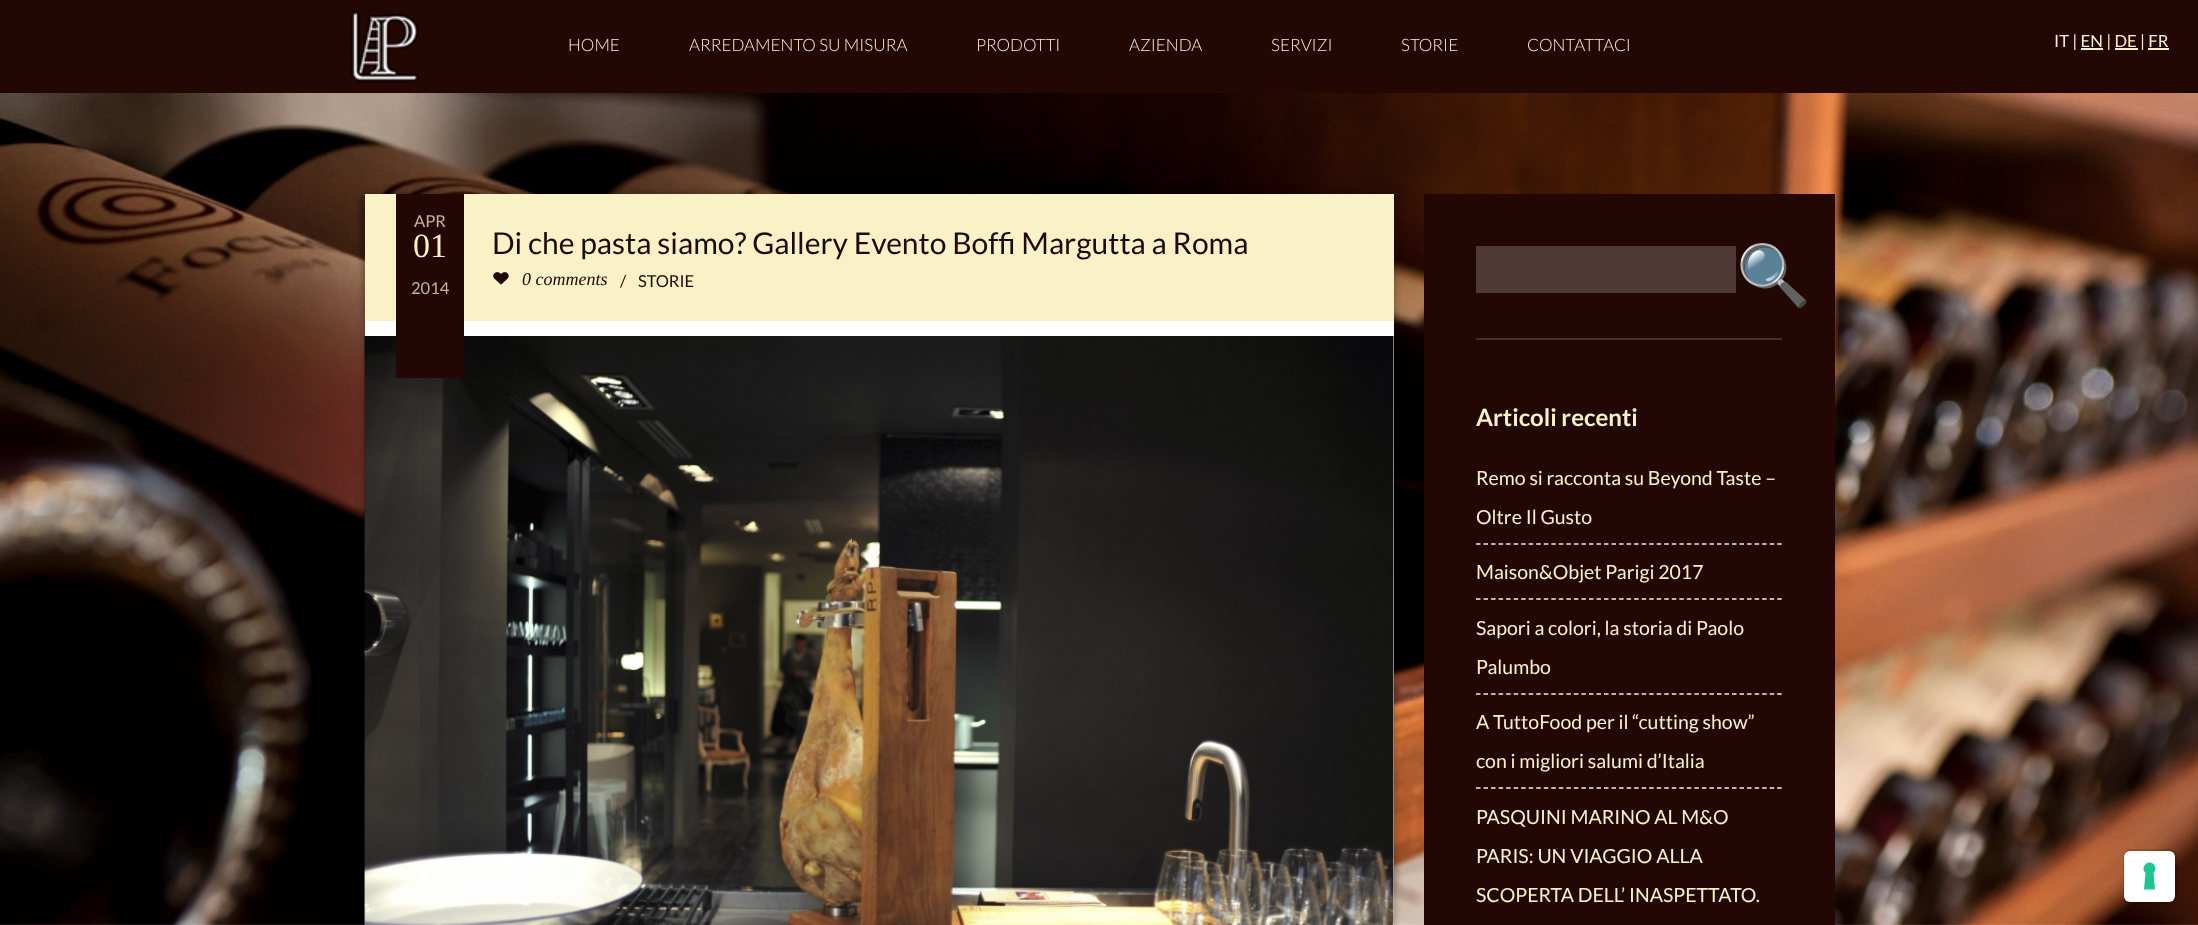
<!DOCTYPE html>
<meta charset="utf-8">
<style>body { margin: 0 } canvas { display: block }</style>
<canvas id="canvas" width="2198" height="925"></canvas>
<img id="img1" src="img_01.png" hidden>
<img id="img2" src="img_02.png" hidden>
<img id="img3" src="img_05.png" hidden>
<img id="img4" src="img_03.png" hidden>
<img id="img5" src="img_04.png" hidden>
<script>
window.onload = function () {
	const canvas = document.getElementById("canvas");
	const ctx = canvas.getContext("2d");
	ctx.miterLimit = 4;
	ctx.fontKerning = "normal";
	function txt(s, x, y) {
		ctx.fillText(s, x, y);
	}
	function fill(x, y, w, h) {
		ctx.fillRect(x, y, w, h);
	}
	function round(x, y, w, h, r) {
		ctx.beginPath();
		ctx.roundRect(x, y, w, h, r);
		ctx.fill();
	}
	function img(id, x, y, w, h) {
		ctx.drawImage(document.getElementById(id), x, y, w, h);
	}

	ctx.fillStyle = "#FFFFFF";
	fill(0, 0, 2198, 925);
	ctx.fillStyle = "#230704";
	fill(0, 0, 2198, 93);
	img("img1", 351, 10, 68, 73);
	ctx.fillStyle = "#F9F2C6";
	fill(2081, 48, 22, 2);
	fill(2115, 48, 23, 2);
	fill(2148, 48, 21, 2);
	img("img2", 0, 93, 2198, 832);
	fill(365, 194, 1029, 127);
	ctx.fillStyle = "#FFFFFF";
	fill(365, 321, 1029, 604);
	img("img3", 364, 336, 1030, 589);
	ctx.save();
	ctx.beginPath();
	ctx.moveTo(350, 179);
	ctx.lineTo(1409, 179);
	ctx.lineTo(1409, 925);
	ctx.lineTo(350, 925);
	ctx.closePath();
	ctx.moveTo(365, 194);
	ctx.lineTo(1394, 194);
	ctx.lineTo(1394, 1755);
	ctx.lineTo(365, 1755);
	ctx.closePath();
	ctx.clip("evenodd");
	ctx.fillStyle = "rgba(0, 0, 0, 0.35)";
	ctx.filter = "blur(4.5px)";
	ctx.beginPath();
	ctx.rect(365, 194, 1029, 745);
	ctx.fill();
	ctx.filter = "none";
	ctx.restore();
	img("img4", 357, 195, 8, 118);
	ctx.fillStyle = "#230704";
	fill(396, 194, 68, 184);
	ctx.fillStyle = "#1A0503";
	fill(426, 269, 9, 2);
	img("img5", 493, 272, 16, 13);
	ctx.fillStyle = "#230704";
	fill(1424, 194, 411, 731);
	ctx.fillStyle = "#442C2A";
	fill(1476, 338, 306, 2);
	ctx.fillStyle = "#4F3936";
	fill(1476, 246, 260, 47);
	ctx.beginPath();
	ctx.moveTo(1476, 544);
	ctx.lineTo(1782, 544);
	ctx.strokeStyle = "#F9F2C6";
	ctx.lineWidth = 1.5;
	ctx.setLineDash([4.5, 3.03]);
	ctx.stroke();
	ctx.beginPath();
	ctx.moveTo(1476, 599);
	ctx.lineTo(1782, 599);
	ctx.stroke();
	ctx.beginPath();
	ctx.moveTo(1476, 694);
	ctx.lineTo(1782, 694);
	ctx.stroke();
	ctx.beginPath();
	ctx.moveTo(1476, 788);
	ctx.lineTo(1782, 788);
	ctx.stroke();
	ctx.beginPath();
	ctx.roundRect(2124, 850, 52, 52, 7);
	ctx.strokeStyle = "rgba(0, 0, 0, 0.15)";
	ctx.lineWidth = 2;
	ctx.setLineDash([]);
	ctx.stroke();
	ctx.fillStyle = "#FFFFFF";
	round(2124, 851, 51, 51, 6);
	ctx.fillStyle = "#1CC691";
	ctx.beginPath();
	ctx.moveTo(2149.5, 862.5);
	ctx.bezierCurveTo(2155, 862.5, 2157.5, 869.5, 2153.5, 873);
	ctx.lineTo(2155, 889.5);
	ctx.lineTo(2144, 889.5);
	ctx.lineTo(2145.5, 873);
	ctx.bezierCurveTo(2141.5, 869.5, 2144, 862.5, 2149.5, 862.5);
	ctx.closePath();
	ctx.fill("evenodd");
	ctx.font = "300 17px Lato";
	ctx.fillStyle = "#F9F2C6";
	txt("HOME", 568, 51);
	txt("ARREDAMENTO SU MISURA", 689, 51);
	txt("PRODOTTI", 976, 51);
	txt("AZIENDA", 1129, 51);
	txt("SERVIZI", 1271, 51);
	txt("STORIE", 1401, 51);
	txt("CONTATTACI", 1527, 51);
	ctx.font = "16.75px Lato";
	txt("IT | EN | DE | FR", 2054, 47);
	ctx.font = "16.5px Lato";
	ctx.fillStyle = "#C4B796";
	txt("APR", 414, 227);
	ctx.font = "34px Liberation Serif";
	ctx.fillStyle = "#F9F2C6";
	txt("01", 413, 257);
	ctx.font = "16.5px Lato";
	ctx.fillStyle = "#C4B796";
	txt("2014", 411, 294);
	ctx.font = "30px Lato";
	ctx.fillStyle = "#230704";
	txt("Di che pasta siamo? Gallery Evento Boffi Margutta a Roma", 492, 254);
	ctx.font = "italic 18px Liberation Serif";
	txt("0 comments", 522, 285);
	ctx.font = "16.5px Lato";
	txt("/", 620, 287);
	txt("STORIE", 638, 287);
	ctx.font = "60px Noto Color Emoji";
	ctx.fillStyle = "#FFFFFF";
	txt("🔍", 1736, 296);
	ctx.font = "bold 24px Lato";
	ctx.fillStyle = "#F9F2C6";
	txt("Articoli recenti", 1476, 426);
	ctx.font = "19.5px Lato";
	txt("Remo si racconta su Beyond Taste –", 1476, 485);
	txt("Oltre Il Gusto", 1476, 524);
	txt("Maison&Objet Parigi 2017", 1476, 579);
	txt("Sapori a colori, la storia di Paolo", 1476, 635);
	txt("Palumbo", 1476, 674);
	txt("A TuttoFood per il “cutting show”", 1476, 729);
	txt("con i migliori salumi d’Italia", 1476, 768);
	txt("PASQUINI MARINO AL M&O", 1476, 824);
	txt("PARIS: UN VIAGGIO ALLA", 1476, 863);
	txt("SCOPERTA DELL’ INASPETTATO.", 1476, 902);
};
</script>
